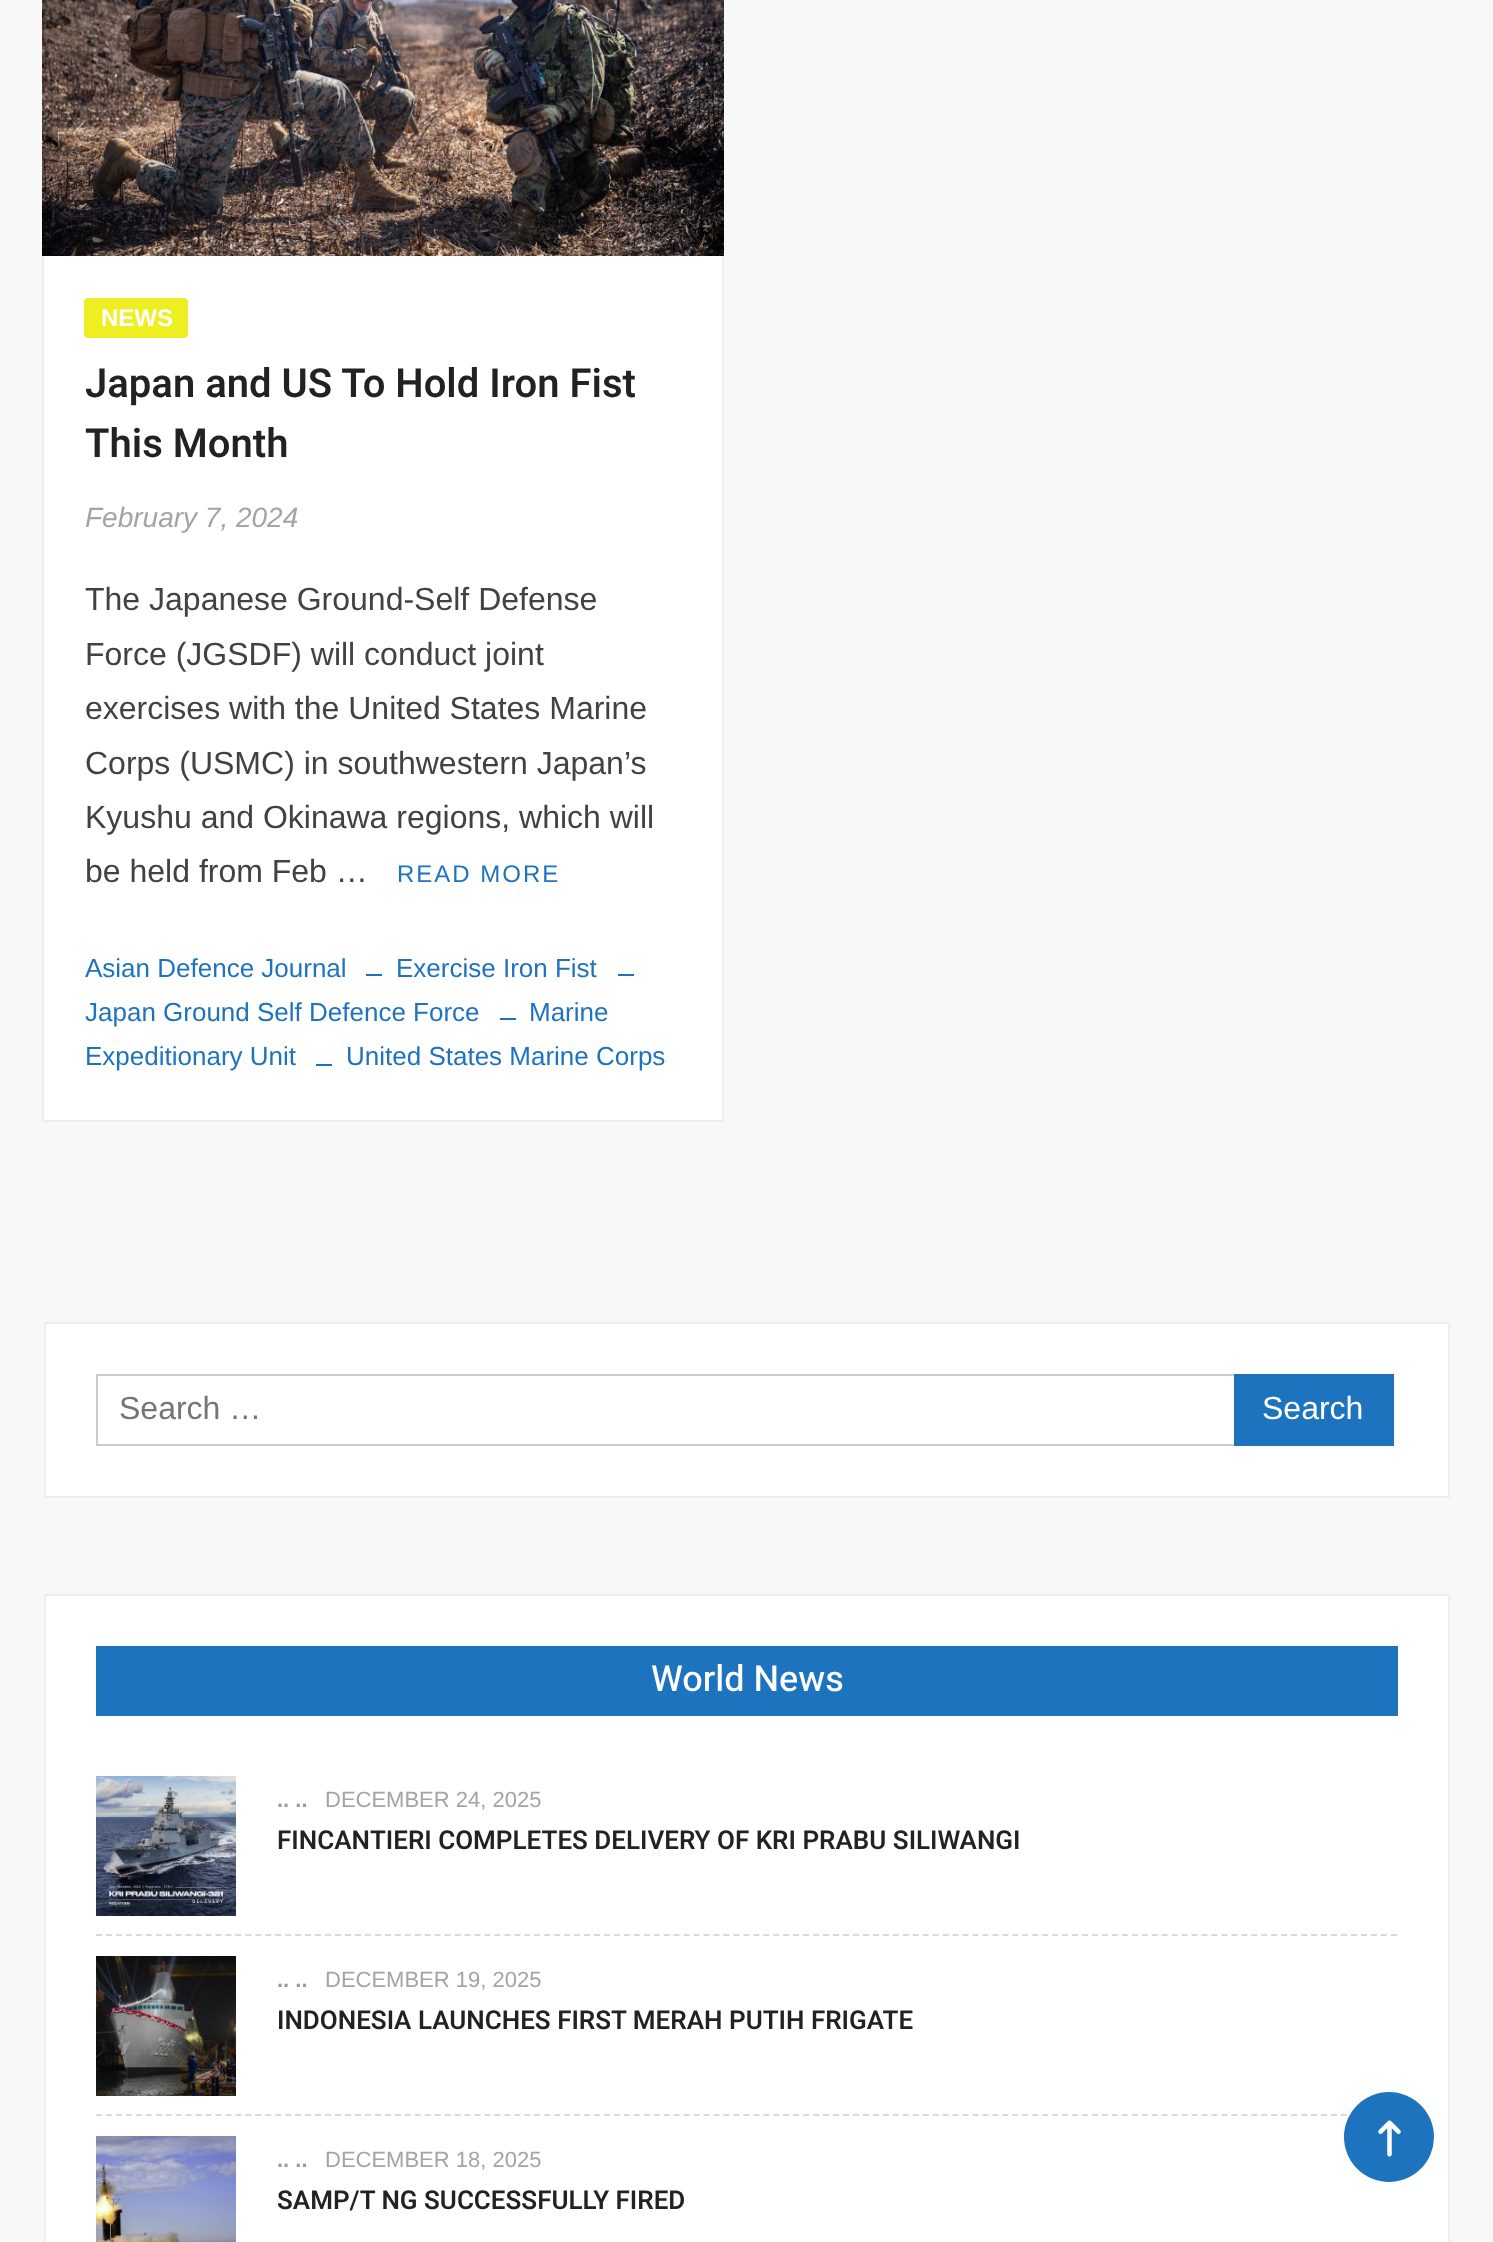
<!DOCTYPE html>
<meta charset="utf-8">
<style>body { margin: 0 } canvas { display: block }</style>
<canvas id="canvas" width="1493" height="2242"></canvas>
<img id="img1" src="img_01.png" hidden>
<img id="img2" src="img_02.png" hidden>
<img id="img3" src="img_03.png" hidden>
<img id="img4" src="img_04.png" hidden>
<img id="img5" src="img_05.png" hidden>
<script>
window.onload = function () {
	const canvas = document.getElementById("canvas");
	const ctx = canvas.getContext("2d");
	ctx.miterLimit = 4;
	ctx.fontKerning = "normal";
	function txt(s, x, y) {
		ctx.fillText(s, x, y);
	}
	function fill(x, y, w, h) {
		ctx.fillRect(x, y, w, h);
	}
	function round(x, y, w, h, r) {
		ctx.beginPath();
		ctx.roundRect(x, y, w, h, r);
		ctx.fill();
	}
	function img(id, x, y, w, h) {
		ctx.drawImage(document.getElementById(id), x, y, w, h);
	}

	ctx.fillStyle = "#F8F8F8";
	fill(0, 0, 1493, 2242);
	ctx.fillStyle = "#FFFFFF";
	ctx.beginPath();
	ctx.rect(43, 255, 680, 866);
	ctx.fill();
	ctx.strokeStyle = "#EEEEEE";
	ctx.lineWidth = 2;
	ctx.stroke();
	img("img1", 42, 0, 682, 256);
	ctx.fillStyle = "#EEEE22";
	round(84, 298, 104, 40, 4);
	ctx.fillStyle = "#1E73BE";
	fill(366, 974, 16, 2);
	fill(618, 974, 16, 2);
	fill(500, 1018, 16, 2);
	fill(316, 1064, 16, 2);
	ctx.fillStyle = "#FFFFFF";
	ctx.beginPath();
	ctx.rect(45, 1323, 1404, 174);
	ctx.fill();
	ctx.stroke();
	ctx.strokeStyle = "#CCCCCC";
	ctx.strokeRect(97, 1375, 1138, 70);
	ctx.fillStyle = "#1E73BE";
	fill(1234, 1374, 160, 72);
	ctx.fillStyle = "#FFFFFF";
	ctx.beginPath();
	ctx.rect(45, 1595, 1404, 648);
	ctx.fill();
	ctx.strokeStyle = "#EEEEEE";
	ctx.stroke();
	ctx.fillStyle = "#1E73BE";
	fill(96, 1646, 1302, 70);
	ctx.beginPath();
	ctx.moveTo(96, 1935);
	ctx.lineTo(1398, 1935);
	ctx.strokeStyle = "#D9D9D9";
	ctx.setLineDash([6, 3.96]);
	ctx.stroke();
	img("img2", 96, 1776, 140, 140);
	ctx.beginPath();
	ctx.moveTo(96, 2115);
	ctx.lineTo(1398, 2115);
	ctx.stroke();
	img("img3", 96, 1956, 140, 140);
	img("img4", 96, 2136, 140, 106);
	ctx.beginPath();
	ctx.arc(1389, 2137, 45, 0, Math.PI * 2);
	ctx.fill();
	img("img5", 1378, 2120, 23, 37);
	ctx.font = "bold 24px Liberation Sans";
	ctx.fillStyle = "#FFFFFF";
	txt("NEWS", 101, 326);
	ctx.font = "600 40px Heebo";
	ctx.fillStyle = "#222222";
	txt("Japan and US To Hold Iron Fist", 85, 397);
	txt("This Month", 85, 457);
	ctx.font = "italic 28px Liberation Sans";
	ctx.fillStyle = "#A4A4A4";
	txt("February 7, 2024", 85, 527);
	ctx.font = "32px Liberation Sans";
	ctx.fillStyle = "#424242";
	txt("The Japanese Ground-Self Defense", 85, 610);
	txt("Force (JGSDF) will conduct joint", 85, 665);
	txt("exercises with the United States Marine", 85, 719);
	txt("Corps (USMC) in southwestern Japan’s", 85, 774);
	txt("Kyushu and Okinawa regions, which will", 85, 828);
	txt("be held from Feb …", 85, 882);
	ctx.letterSpacing = "2px";
	ctx.font = "24px Liberation Sans";
	ctx.fillStyle = "#1E73BE";
	txt("READ MORE", 397, 882);
	ctx.letterSpacing = "0px";
	ctx.font = "26px Liberation Sans";
	txt("Asian Defence Journal", 85, 977);
	txt("Exercise Iron Fist", 396, 977);
	txt("Japan Ground Self Defence Force", 85, 1021);
	txt("Marine", 529, 1021);
	txt("Expeditionary Unit", 85, 1065);
	txt("United States Marine Corps", 346, 1065);
	ctx.font = "32px Liberation Sans";
	ctx.fillStyle = "#757575";
	txt("Search …", 119, 1419);
	ctx.fillStyle = "#FFFFFF";
	txt("Search", 1262, 1419);
	ctx.font = "500 36px Heebo";
	txt("World News", 651, 1691);
	ctx.font = "bold 22px Liberation Sans";
	ctx.fillStyle = "#999999";
	txt(".. ..", 277, 1807);
	ctx.font = "22px Liberation Sans";
	ctx.fillStyle = "#A4A4A4";
	txt("DECEMBER 24, 2025", 325, 1807);
	ctx.font = "600 26px Heebo";
	ctx.fillStyle = "#222222";
	txt("FINCANTIERI COMPLETES DELIVERY OF KRI PRABU SILIWANGI", 277, 1849);
	ctx.font = "bold 22px Liberation Sans";
	ctx.fillStyle = "#999999";
	txt(".. ..", 277, 1987);
	ctx.font = "22px Liberation Sans";
	ctx.fillStyle = "#A4A4A4";
	txt("DECEMBER 19, 2025", 325, 1987);
	ctx.font = "600 26px Heebo";
	ctx.fillStyle = "#222222";
	txt("INDONESIA LAUNCHES FIRST MERAH PUTIH FRIGATE", 277, 2029);
	ctx.font = "bold 22px Liberation Sans";
	ctx.fillStyle = "#999999";
	txt(".. ..", 277, 2167);
	ctx.font = "22px Liberation Sans";
	ctx.fillStyle = "#A4A4A4";
	txt("DECEMBER 18, 2025", 325, 2167);
	ctx.font = "600 26px Heebo";
	ctx.fillStyle = "#222222";
	txt("SAMP/T NG SUCCESSFULLY FIRED", 277, 2209);
};
</script>
